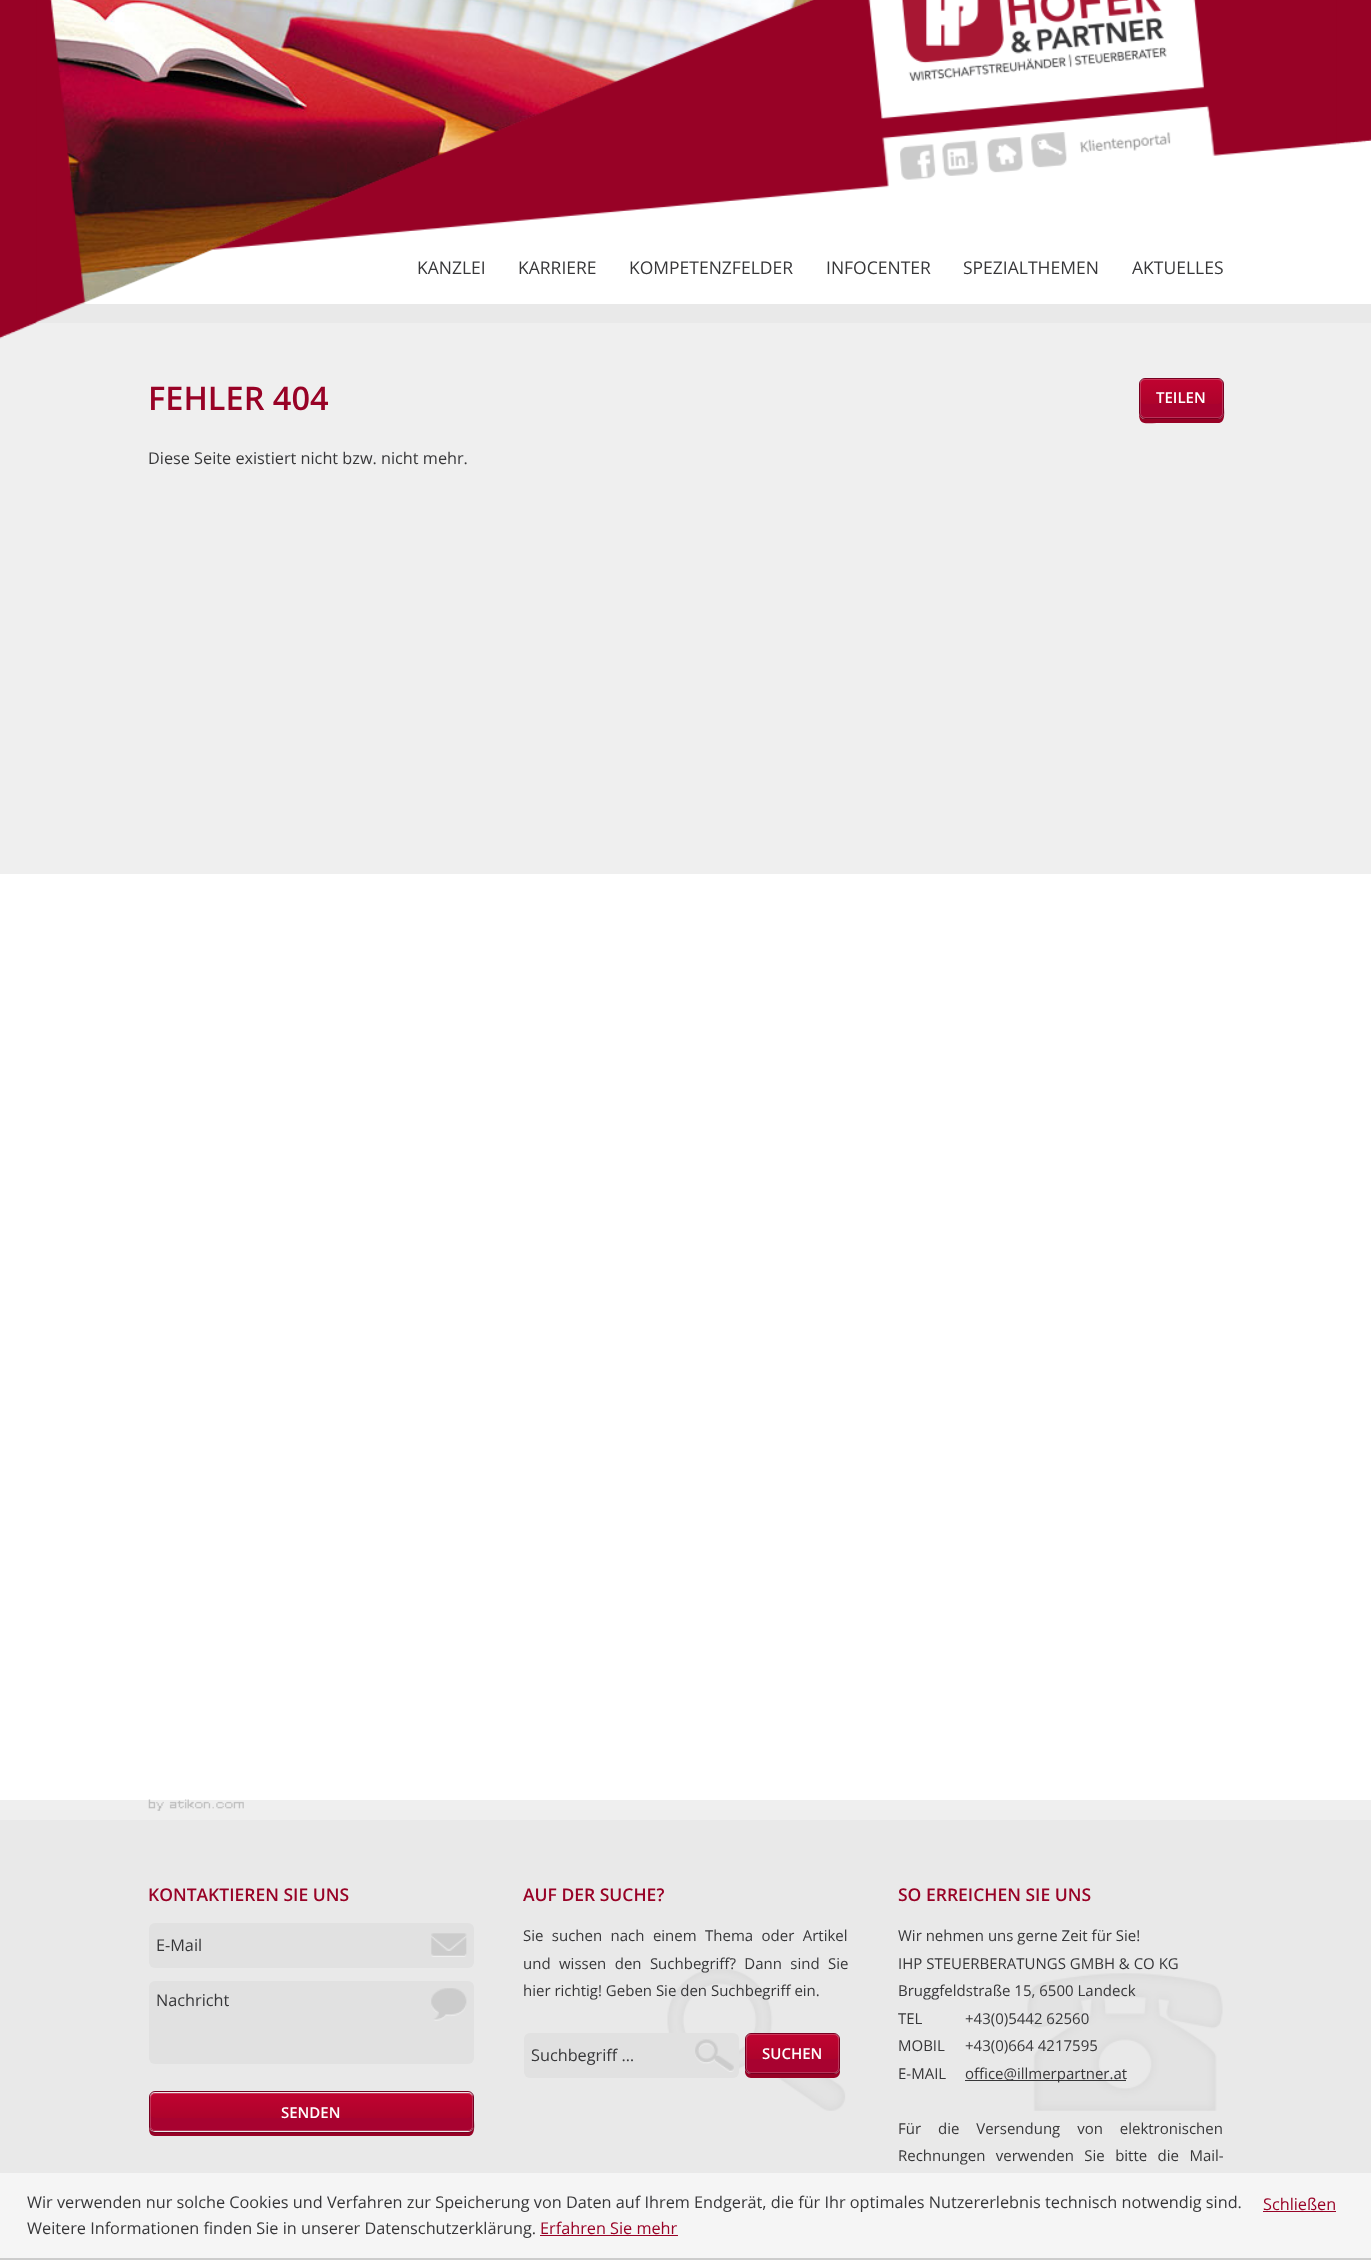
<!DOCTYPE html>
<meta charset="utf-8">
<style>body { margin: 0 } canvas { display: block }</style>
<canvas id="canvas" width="1371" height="2260"></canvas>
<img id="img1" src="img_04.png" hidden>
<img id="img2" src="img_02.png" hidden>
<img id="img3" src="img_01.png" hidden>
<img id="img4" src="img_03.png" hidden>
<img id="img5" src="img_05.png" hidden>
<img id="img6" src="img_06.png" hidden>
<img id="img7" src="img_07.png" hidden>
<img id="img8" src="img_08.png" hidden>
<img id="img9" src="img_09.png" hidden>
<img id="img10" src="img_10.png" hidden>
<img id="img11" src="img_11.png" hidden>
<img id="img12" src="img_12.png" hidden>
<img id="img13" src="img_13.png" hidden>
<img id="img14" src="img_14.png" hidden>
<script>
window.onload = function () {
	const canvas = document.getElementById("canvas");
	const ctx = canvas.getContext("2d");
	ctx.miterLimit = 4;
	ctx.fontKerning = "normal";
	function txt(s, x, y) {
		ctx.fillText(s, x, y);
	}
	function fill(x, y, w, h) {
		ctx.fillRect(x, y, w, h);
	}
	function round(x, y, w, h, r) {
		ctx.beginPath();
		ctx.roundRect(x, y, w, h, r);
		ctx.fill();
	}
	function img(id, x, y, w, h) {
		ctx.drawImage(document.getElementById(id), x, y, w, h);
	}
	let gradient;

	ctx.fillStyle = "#FFFFFF";
	fill(0, 0, 1371, 2260);
	img("img1", 49, 0, 793, 304);
	ctx.fillStyle = "#E9E9E9";
	fill(36, 304, 1335, 19);
	img("img2", 36, 0, 1302, 323);
	ctx.fillStyle = "#EFEFEF";
	fill(0, 323, 1371, 551);
	img("img3", 0, 0, 37, 339);
	img("img4", 1336, 0, 35, 145);
	img("img5", 901, 0, 266, 81);
	img("img6", 900, 144, 36, 36);
	img("img7", 942, 140, 36, 36);
	img("img8", 987, 137, 36, 36);
	img("img9", 1031, 132, 140, 36);
	ctx.fillStyle = "#980226";
	ctx.beginPath();
	ctx.moveTo(1139, 414);
	ctx.bezierCurveTo(1139, 426, 1147, 423, 1157, 423);
	ctx.lineTo(1218, 423);
	ctx.bezierCurveTo(1226, 423, 1224, 412, 1224, 407);
	ctx.lineTo(1224, 385);
	ctx.lineTo(1224, 412);
	ctx.bezierCurveTo(1224, 416, 1221, 419, 1218, 419);
	ctx.lineTo(1145, 419);
	ctx.bezierCurveTo(1142, 419, 1140, 417, 1139, 414);
	ctx.closePath();
	ctx.fill();
	ctx.fillStyle = "#C00330";
	round(1140, 379, 83, 39, 5);
	gradient = ctx.createLinearGradient(1181, 379, 1181, 418);
	gradient.addColorStop(0, "rgba(0, 0, 0, 0)");
	gradient.addColorStop(1, "rgba(0, 0, 0, 0.15)");
	ctx.fillStyle = gradient;
	round(1140, 379, 83, 39, 5);
	ctx.fillStyle = "#A80230";
	ctx.beginPath();
	ctx.moveTo(1140, 399);
	ctx.lineTo(1140, 413);
	ctx.bezierCurveTo(1140, 416, 1142, 418, 1145, 418);
	ctx.lineTo(1218, 418);
	ctx.bezierCurveTo(1221, 418, 1223, 416, 1223, 413);
	ctx.lineTo(1223, 384);
	ctx.bezierCurveTo(1223, 383, 1223, 382, 1222, 381);
	ctx.lineTo(1222, 399);
	ctx.bezierCurveTo(1222, 402, 1220, 404, 1218, 404);
	ctx.lineTo(1145, 404);
	ctx.bezierCurveTo(1142, 404, 1140, 402, 1140, 399);
	ctx.closePath();
	ctx.fill();
	ctx.beginPath();
	ctx.roundRect(1140.5, 379.5, 82, 38, 4.5);
	ctx.strokeStyle = "rgba(255, 255, 255, 0.2)";
	ctx.stroke();
	ctx.beginPath();
	ctx.roundRect(1139.5, 378.5, 84, 40, 5.5);
	ctx.strokeStyle = "#770021";
	ctx.stroke();
	ctx.fillStyle = "#EFEFEF";
	fill(0, 1800, 1371, 20);
	img("img10", 148, 1799, 96, 12);
	ctx.fillStyle = "#E9E9E9";
	fill(0, 1820, 1371, 353);
	img("img11", 667, 1968, 556, 143);
	ctx.fillStyle = "#E1E1E1";
	round(149, 1923, 325, 45, 6);
	img("img12", 431, 1933, 36, 24);
	round(149, 1981, 325, 83, 6);
	img("img13", 431, 1988, 36, 33);
	ctx.fillStyle = "#980226";
	ctx.beginPath();
	ctx.moveTo(149, 2128);
	ctx.bezierCurveTo(149, 2132, 150, 2136, 155, 2136);
	ctx.lineTo(468, 2136);
	ctx.bezierCurveTo(476, 2136, 474, 2125, 474, 2120);
	ctx.lineTo(474, 2099);
	ctx.lineTo(474, 2126);
	ctx.bezierCurveTo(474, 2130, 471, 2132, 468, 2132);
	ctx.lineTo(155, 2132);
	ctx.bezierCurveTo(152, 2132, 150, 2131, 149, 2128);
	ctx.closePath();
	ctx.fill();
	ctx.fillStyle = "#C00330";
	round(150, 2093, 323, 38, 5);
	gradient = ctx.createLinearGradient(311, 2093, 311, 2131);
	gradient.addColorStop(0, "rgba(0, 0, 0, 0)");
	gradient.addColorStop(1, "rgba(0, 0, 0, 0.15)");
	ctx.fillStyle = gradient;
	round(150, 2093, 323, 38, 5);
	ctx.fillStyle = "#A80230";
	ctx.beginPath();
	ctx.moveTo(150, 2112);
	ctx.lineTo(150, 2126);
	ctx.bezierCurveTo(150, 2129, 152, 2131, 155, 2131);
	ctx.lineTo(468, 2131);
	ctx.bezierCurveTo(471, 2131, 473, 2129, 473, 2126);
	ctx.lineTo(473, 2098);
	ctx.bezierCurveTo(473, 2097, 473, 2096, 472, 2095);
	ctx.lineTo(472, 2112);
	ctx.bezierCurveTo(472, 2115, 470, 2118, 468, 2118);
	ctx.lineTo(155, 2118);
	ctx.bezierCurveTo(152, 2118, 150, 2115, 150, 2112);
	ctx.closePath();
	ctx.fill();
	ctx.beginPath();
	ctx.roundRect(150.5, 2093.5, 322, 37, 4.5);
	ctx.strokeStyle = "rgba(255, 255, 255, 0.2)";
	ctx.stroke();
	ctx.beginPath();
	ctx.roundRect(149.5, 2091.5, 324, 41, 5.5);
	ctx.strokeStyle = "#770021";
	ctx.stroke();
	ctx.fillStyle = "#E1E1E1";
	round(524, 2033, 215, 45, 6);
	img("img14", 695, 2039, 39, 33);
	ctx.fillStyle = "#980226";
	ctx.beginPath();
	ctx.moveTo(745, 2068);
	ctx.lineTo(745, 2072);
	ctx.bezierCurveTo(745, 2075, 748, 2078, 751, 2078);
	ctx.lineTo(834, 2078);
	ctx.bezierCurveTo(837, 2078, 840, 2075, 840, 2072);
	ctx.lineTo(840, 2068);
	ctx.bezierCurveTo(840, 2071, 837, 2074, 834, 2074);
	ctx.lineTo(751, 2074);
	ctx.bezierCurveTo(748, 2074, 745, 2071, 745, 2068);
	ctx.closePath();
	ctx.fill();
	ctx.fillStyle = "#C00330";
	round(746, 2034, 93, 39, 5);
	gradient = ctx.createLinearGradient(793, 2034, 793, 2073);
	gradient.addColorStop(0, "rgba(0, 0, 0, 0)");
	gradient.addColorStop(1, "rgba(0, 0, 0, 0.15)");
	ctx.fillStyle = gradient;
	round(746, 2034, 93, 39, 5);
	ctx.fillStyle = "#A80230";
	ctx.beginPath();
	ctx.moveTo(746, 2054);
	ctx.bezierCurveTo(746, 2074, 742, 2073, 765, 2073);
	ctx.lineTo(820, 2073);
	ctx.bezierCurveTo(843, 2073, 839, 2074, 839, 2054);
	ctx.bezierCurveTo(839, 2057, 837, 2059, 834, 2059);
	ctx.lineTo(751, 2059);
	ctx.bezierCurveTo(748, 2059, 746, 2057, 746, 2054);
	ctx.closePath();
	ctx.fill();
	ctx.beginPath();
	ctx.roundRect(746.5, 2034.5, 92, 38, 4.5);
	ctx.strokeStyle = "rgba(255, 255, 255, 0.2)";
	ctx.stroke();
	ctx.beginPath();
	ctx.roundRect(745.5, 2033.5, 94, 40, 5.5);
	ctx.strokeStyle = "#770021";
	ctx.stroke();
	ctx.fillStyle = "#373739";
	fill(965, 2080, 161, 1);
	ctx.fillStyle = "#F5F5F5";
	fill(0, 2173, 1371, 85);
	ctx.fillStyle = "#CCCCCC";
	fill(0, 2258, 1371, 2);
	ctx.fillStyle = "#980226";
	fill(1263, 2211, 73, 1);
	fill(540, 2235, 138, 1);
	ctx.font = "17.5px Open Sans";
	ctx.fillStyle = "#373739";
	txt("KANZLEI", 417, 274);
	txt("KARRIERE", 518, 274);
	txt("KOMPETENZFELDER", 629, 274);
	txt("INFOCENTER", 826, 274);
	txt("SPEZIALTHEMEN", 963, 274);
	txt("AKTUELLES", 1132, 274);
	ctx.font = "600 32.5px Open Sans";
	ctx.fillStyle = "#980226";
	txt("FEHLER 404", 148, 410);
	ctx.font = "16.25px Open Sans";
	ctx.fillStyle = "#373739";
	txt("Diese Seite existiert nicht bzw. nicht mehr.", 148, 464);
	ctx.font = "600 15px Open Sans";
	ctx.fillStyle = "#FFFFFF";
	txt("TEILEN", 1156, 403);
	ctx.font = "600 17.5px Open Sans";
	ctx.fillStyle = "#980226";
	txt("KONTAKTIEREN SIE UNS", 148, 1901);
	ctx.font = "16.25px Open Sans";
	ctx.fillStyle = "#373739";
	txt("E-Mail", 156, 1951);
	txt("Nachricht", 156, 2006);
	ctx.font = "600 15px Open Sans";
	ctx.fillStyle = "#FFFFFF";
	txt("SENDEN", 281, 2118);
	ctx.font = "600 17.5px Open Sans";
	ctx.fillStyle = "#980226";
	txt("AUF DER SUCHE?", 523, 1901);
	ctx.wordSpacing = "4.5px";
	ctx.font = "15px Open Sans";
	ctx.fillStyle = "#373739";
	txt("Sie suchen nach einem Thema oder Artikel", 523, 1941);
	txt("und wissen den Suchbegriff? Dann sind Sie", 523, 1969);
	ctx.wordSpacing = "0px";
	txt("hier richtig! Geben Sie den Suchbegriff ein.", 523, 1996);
	ctx.font = "16.25px Open Sans";
	txt("Suchbegriff …", 531, 2061);
	ctx.font = "600 15px Open Sans";
	ctx.fillStyle = "#FFFFFF";
	txt("SUCHEN", 762, 2059);
	ctx.font = "600 17.5px Open Sans";
	ctx.fillStyle = "#980226";
	txt("SO ERREICHEN SIE UNS", 898, 1901);
	ctx.font = "15px Open Sans";
	ctx.fillStyle = "#373739";
	txt("Wir nehmen uns gerne Zeit für Sie!", 898, 1941);
	txt("IHP STEUERBERATUNGS GMBH & CO KG", 898, 1969);
	txt("Bruggfeldstraße 15, 6500 Landeck", 898, 1996);
	txt("TEL", 898, 2024);
	txt("+43(0)5442 62560", 965, 2024);
	txt("MOBIL", 898, 2051);
	txt("+43(0)664 4217595", 965, 2051);
	txt("E-MAIL", 898, 2079);
	txt("office@illmerpartner.at", 965, 2079);
	ctx.wordSpacing = "13px";
	txt("Für die Versendung von elektronischen", 898, 2134);
	ctx.wordSpacing = "6.5px";
	txt("Rechnungen verwenden Sie bitte die Mail-", 898, 2161);
	ctx.wordSpacing = "0px";
	ctx.font = "16.25px Open Sans";
	txt("Wir verwenden nur solche Cookies und Verfahren zur Speicherung von Daten auf Ihrem Endgerät, die für Ihr optimales Nutzererlebnis technisch notwendig sind.", 27, 2208);
	ctx.fillStyle = "#980226";
	txt("Schließen", 1263, 2210);
	ctx.fillStyle = "#373739";
	txt("Weitere Informationen finden Sie in unserer Datenschutzerklärung.", 27, 2234);
	ctx.fillStyle = "#980226";
	txt("Erfahren Sie mehr", 540, 2234);
};
</script>
